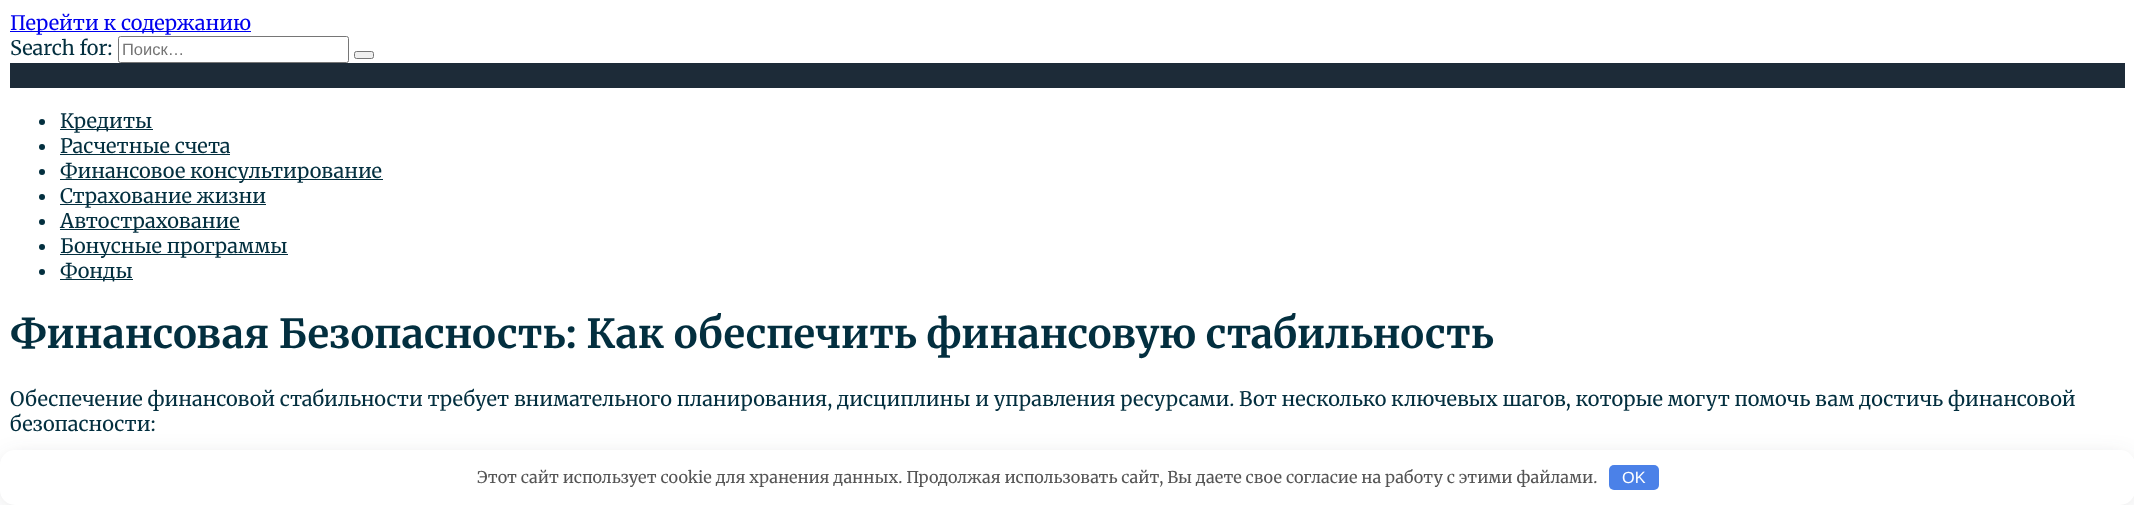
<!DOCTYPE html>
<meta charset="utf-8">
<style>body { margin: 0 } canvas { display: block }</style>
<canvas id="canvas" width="2134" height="505"></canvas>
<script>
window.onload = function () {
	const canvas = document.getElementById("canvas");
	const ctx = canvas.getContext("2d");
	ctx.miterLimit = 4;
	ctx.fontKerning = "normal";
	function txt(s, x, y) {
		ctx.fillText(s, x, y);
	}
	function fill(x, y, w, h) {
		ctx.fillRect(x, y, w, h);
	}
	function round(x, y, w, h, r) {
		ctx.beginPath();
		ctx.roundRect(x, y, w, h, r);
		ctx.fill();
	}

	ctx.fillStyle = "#FFFFFF";
	fill(0, 0, 2134, 505);
	ctx.fillStyle = "#0000EE";
	fill(10, 31, 241, 1);
	ctx.beginPath();
	ctx.roundRect(118.5, 36.5, 230, 26, 2);
	ctx.strokeStyle = "#767676";
	ctx.stroke();
	ctx.fillStyle = "#EFEFEF";
	ctx.beginPath();
	ctx.roundRect(354.5, 51.5, 19, 7, 2);
	ctx.fill();
	ctx.stroke();
	ctx.fillStyle = "#1D2B38";
	fill(10, 63, 2115, 25);
	ctx.fillStyle = "#032F3F";
	ctx.beginPath();
	ctx.arc(42, 122, 3, 0, Math.PI * 2);
	ctx.fill();
	fill(60, 129, 93, 1);
	ctx.beginPath();
	ctx.arc(42, 147, 3, 0, Math.PI * 2);
	ctx.fill();
	fill(60, 154, 170, 1);
	ctx.beginPath();
	ctx.arc(42, 172, 3, 0, Math.PI * 2);
	ctx.fill();
	fill(60, 179, 323, 1);
	ctx.beginPath();
	ctx.arc(42, 197, 3, 0, Math.PI * 2);
	ctx.fill();
	fill(60, 204, 206, 1);
	ctx.beginPath();
	ctx.arc(42, 222, 3, 0, Math.PI * 2);
	ctx.fill();
	fill(60, 229, 180, 1);
	ctx.beginPath();
	ctx.arc(42, 247, 3, 0, Math.PI * 2);
	ctx.fill();
	fill(60, 254, 228, 1);
	ctx.beginPath();
	ctx.arc(42, 272, 3, 0, Math.PI * 2);
	ctx.fill();
	fill(60, 279, 73, 1);
	ctx.fillStyle = "rgba(41, 44, 56, 0.2)";
	ctx.filter = "blur(12.5px)";
	ctx.beginPath();
	ctx.roundRect(6, 460, 2123, 43, 9);
	ctx.fill();
	ctx.filter = "none";
	ctx.fillStyle = "#FFFFFF";
	round(0, 450, 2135, 55, 15);
	ctx.fillStyle = "#4B81E8";
	round(1609, 465, 50, 25, 5);
	ctx.font = "20px Merriweather";
	ctx.fillStyle = "#0000EE";
	txt("Перейти к содержанию", 10, 30);
	ctx.fillStyle = "#032F3F";
	txt("Search for:", 10, 55);
	ctx.font = "16.5px Liberation Sans";
	ctx.fillStyle = "#757575";
	txt("Поиск…", 122, 55);
	ctx.font = "20px Merriweather";
	ctx.fillStyle = "#032F3F";
	txt("Кредиты", 60, 128);
	txt("Расчетные счета", 60, 153);
	txt("Финансовое консультирование", 60, 178);
	txt("Страхование жизни", 60, 203);
	txt("Автострахование", 60, 228);
	txt("Бонусные программы", 60, 253);
	txt("Фонды", 60, 278);
	ctx.font = "bold 40px Merriweather";
	txt("Финансовая Безопасность: Как обеспечить финансовую стабильность", 10, 348);
	ctx.font = "20px Merriweather";
	txt("Обеспечение финансовой стабильности требует внимательного планирования, дисциплины и управления ресурсами. Вот несколько ключевых шагов, которые могут помочь вам достичь финансовой", 10, 406);
	txt("безопасности:", 10, 431);
	ctx.font = "16.25px Merriweather";
	ctx.fillStyle = "#555555";
	txt("Этот сайт использует cookie для хранения данных. Продолжая использовать сайт, Вы даете свое согласие на работу с этими файлами.", 477, 483);
	ctx.font = "16.25px Liberation Sans";
	ctx.fillStyle = "#FFFFFF";
	txt("OK", 1622, 483);
};
</script>
